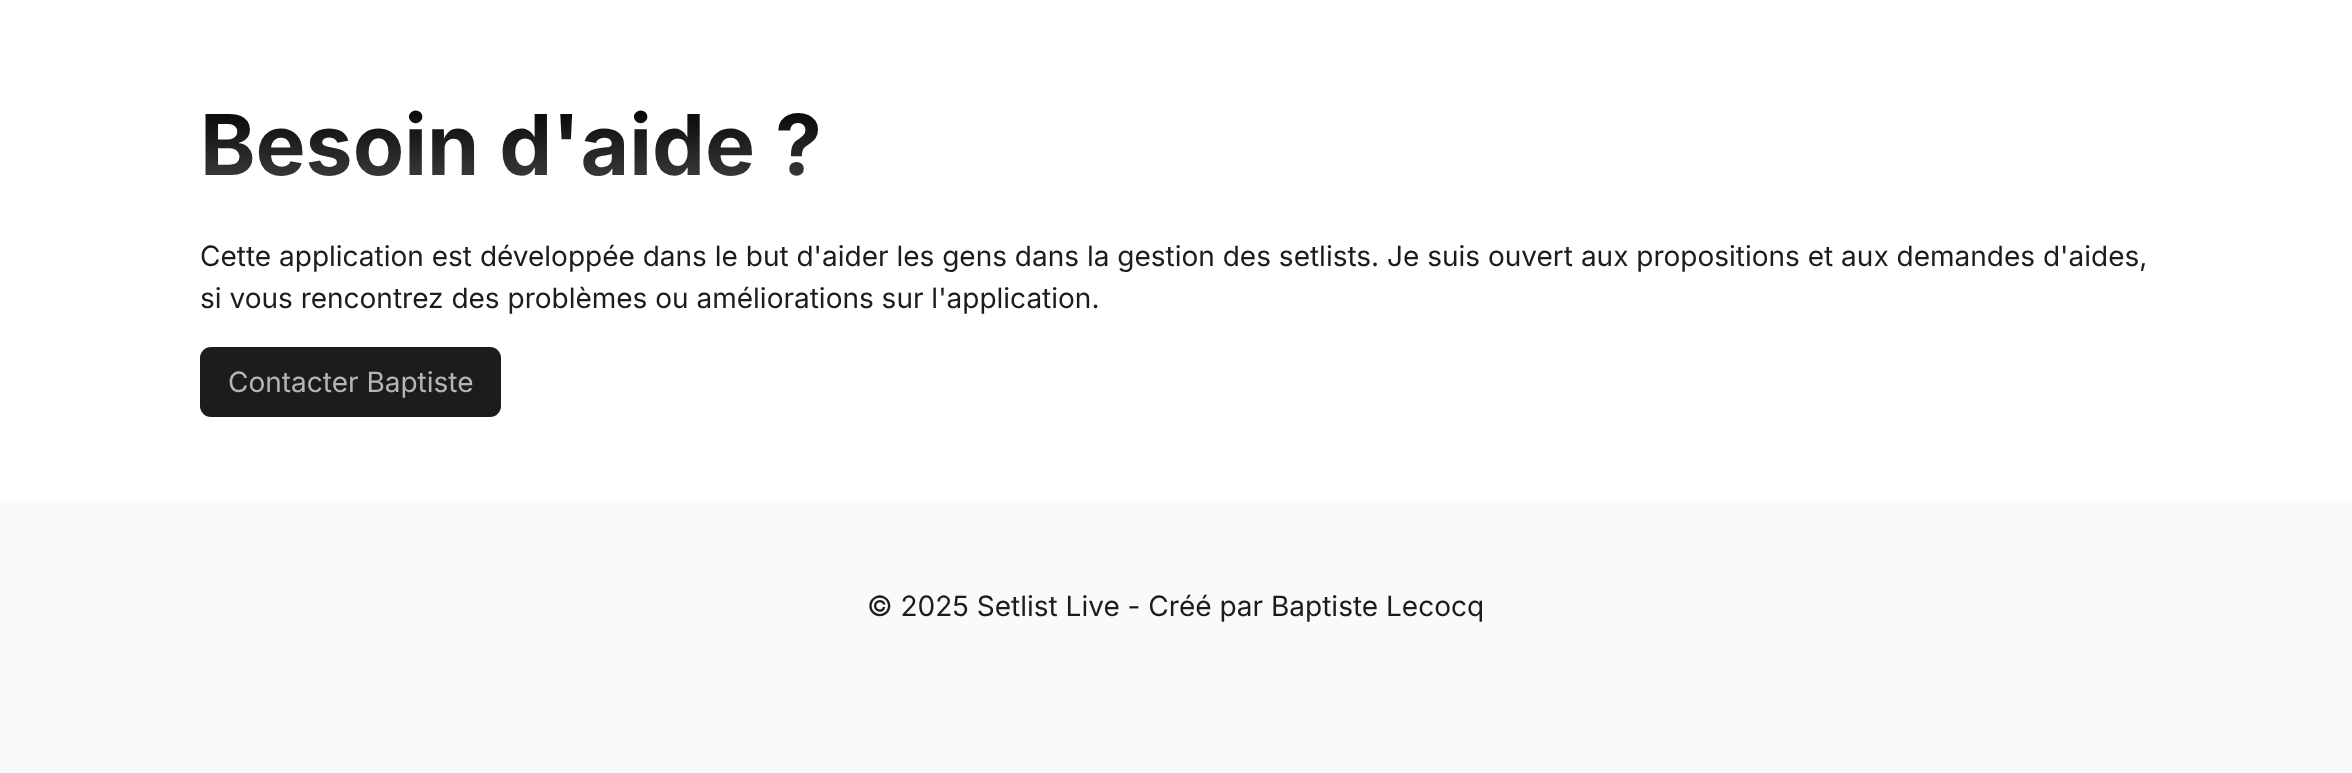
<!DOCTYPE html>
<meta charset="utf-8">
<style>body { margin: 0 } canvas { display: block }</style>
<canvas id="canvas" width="2352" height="773"></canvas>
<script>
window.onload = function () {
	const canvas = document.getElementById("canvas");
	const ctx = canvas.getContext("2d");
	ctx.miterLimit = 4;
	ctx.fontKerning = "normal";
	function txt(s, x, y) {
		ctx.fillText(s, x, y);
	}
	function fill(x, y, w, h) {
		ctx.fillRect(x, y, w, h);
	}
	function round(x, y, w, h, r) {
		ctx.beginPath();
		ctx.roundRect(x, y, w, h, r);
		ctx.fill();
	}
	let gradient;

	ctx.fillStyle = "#FFFFFF";
	fill(0, 0, 2352, 773);
	ctx.fillStyle = "#1C1C1C";
	round(200, 347, 301, 70, 11);
	ctx.fillStyle = "#F9FAFB";
	fill(0, 501, 2352, 272);
	ctx.font = "bold 84px Inter";
	gradient = ctx.createLinearGradient(1176, 98, 1176, 193);
	gradient.addColorStop(0, "#000000");
	gradient.addColorStop(1, "#434343");
	ctx.fillStyle = gradient;
	txt("Besoin d'aide ?", 200, 175);
	ctx.font = "28px Inter";
	ctx.fillStyle = "#1C1C1C";
	txt("Cette application est développée dans le but d'aider les gens dans la gestion des setlists. Je suis ouvert aux propositions et aux demandes d'aides,", 200, 266);
	txt("si vous rencontrez des problèmes ou améliorations sur l'application.", 200, 308);
	ctx.fillStyle = "#B5B5B5";
	txt("Contacter Baptiste", 228, 392);
	ctx.fillStyle = "#1C1C1C";
	txt("© 2025 Setlist Live - Créé par", 867, 616);
	txt("Baptiste Lecocq", 1271, 616);
};
</script>
